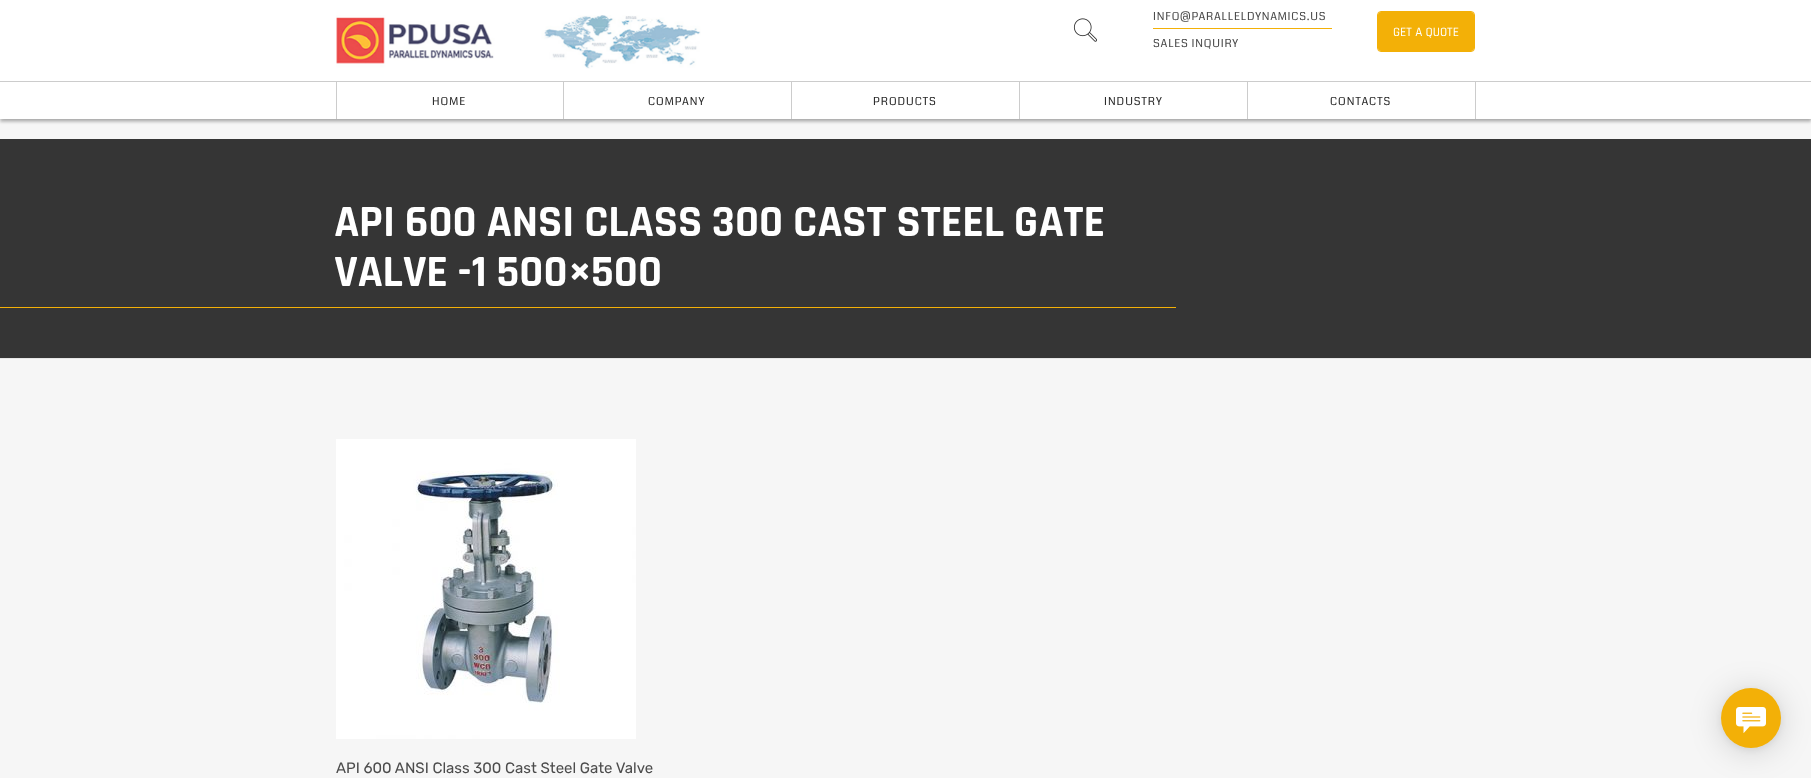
<!DOCTYPE html>
<meta charset="utf-8">
<style>body { margin: 0 } canvas { display: block }</style>
<canvas id="canvas" width="1811" height="778"></canvas>
<img id="img1" src="img_01.png" hidden>
<img id="img2" src="img_02.png" hidden>
<img id="img3" src="img_03.png" hidden>
<img id="img4" src="img_04.png" hidden>
<script>
window.onload = function () {
	const canvas = document.getElementById("canvas");
	const ctx = canvas.getContext("2d");
	ctx.miterLimit = 4;
	ctx.fontKerning = "normal";
	function txt(s, x, y) {
		ctx.fillText(s, x, y);
	}
	function fill(x, y, w, h) {
		ctx.fillRect(x, y, w, h);
	}
	function round(x, y, w, h, r) {
		ctx.beginPath();
		ctx.roundRect(x, y, w, h, r);
		ctx.fill();
	}
	function img(id, x, y, w, h) {
		ctx.drawImage(document.getElementById(id), x, y, w, h);
	}

	ctx.fillStyle = "#F6F6F6";
	fill(0, 0, 1811, 778);
	ctx.fillStyle = "rgba(0, 0, 0, 0.23)";
	ctx.filter = "blur(1.5px)";
	ctx.beginPath();
	ctx.rect(0, 3, 1811, 119);
	ctx.fill();
	ctx.filter = "none";
	ctx.fillStyle = "rgba(0, 0, 0, 0.19)";
	ctx.filter = "blur(1.5px)";
	ctx.beginPath();
	ctx.rect(3, 0, 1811, 119);
	ctx.fill();
	ctx.filter = "none";
	ctx.fillStyle = "#FFFFFF";
	fill(0, 0, 1811, 119);
	ctx.fillStyle = "#CCCCCC";
	fill(0, 81, 1811, 1);
	img("img1", 1073, 18, 24, 24);
	ctx.fillStyle = "#F3B007";
	fill(1153, 28, 179, 1);
	ctx.beginPath();
	ctx.roundRect(1377.5, 11.5, 97, 40, 3.5);
	ctx.strokeStyle = "#F3B007";
	ctx.stroke();
	round(1378, 12, 96, 39, 3);
	ctx.fillStyle = "#CCCCCC";
	fill(563, 82, 1, 37);
	fill(336, 82, 1, 37);
	fill(791, 82, 1, 37);
	fill(1019, 82, 1, 37);
	fill(1247, 82, 1, 37);
	fill(1475, 82, 1, 37);
	img("img2", 336, 15, 365, 54);
	ctx.fillStyle = "#353535";
	fill(0, 139, 1811, 219);
	ctx.fillStyle = "#E6E6E6";
	fill(0, 358, 1811, 1);
	ctx.fillStyle = "#F3B007";
	fill(0, 307, 1176, 1);
	img("img3", 336, 439, 300, 300);
	ctx.fillStyle = "rgba(0, 0, 0, 0.16)";
	ctx.filter = "blur(16px)";
	ctx.beginPath();
	ctx.roundRect(1721, 691, 60, 60, 30);
	ctx.fill();
	ctx.filter = "none";
	ctx.fillStyle = "rgba(0, 0, 0, 0.06)";
	ctx.filter = "blur(3px)";
	ctx.beginPath();
	ctx.roundRect(1721, 690, 60, 60, 30);
	ctx.fill();
	ctx.filter = "none";
	ctx.fillStyle = "#F3B007";
	ctx.beginPath();
	ctx.arc(1751, 718, 30, 0, Math.PI * 2);
	ctx.fill();
	img("img4", 1736, 707, 30, 26);
	ctx.letterSpacing = "0.8px";
	ctx.font = "11px Coda";
	ctx.fillStyle = "#4C4C4C";
	txt("INFO@PARALLELDYNAMICS.US", 1153, 20);
	txt("SALES INQUIRY", 1153, 47);
	ctx.letterSpacing = "0px";
	ctx.font = "500 13px Rajdhani";
	ctx.fillStyle = "#FFFFFF";
	txt("GET A QUOTE", 1393, 36);
	ctx.letterSpacing = "1px";
	ctx.font = "11px Coda";
	ctx.fillStyle = "#2D2D2D";
	txt("HOME", 432, 105);
	txt("COMPANY", 648, 105);
	txt("PRODUCTS", 873, 105);
	txt("INDUSTRY", 1104, 105);
	txt("CONTACTS", 1330, 105);
	ctx.letterSpacing = "0px";
	ctx.font = "bold 45px Rajdhani";
	ctx.fillStyle = "#FFFFFF";
	txt("API 600 ANSI CLASS 300 CAST STEEL GATE", 334, 236);
	txt("VALVE -1 500×500", 334, 286);
	ctx.font = "15px Rubik";
	ctx.fillStyle = "#4C4C4C";
	txt("API 600 ANSI Class 300 Cast Steel Gate Valve", 336, 773);
};
</script>
